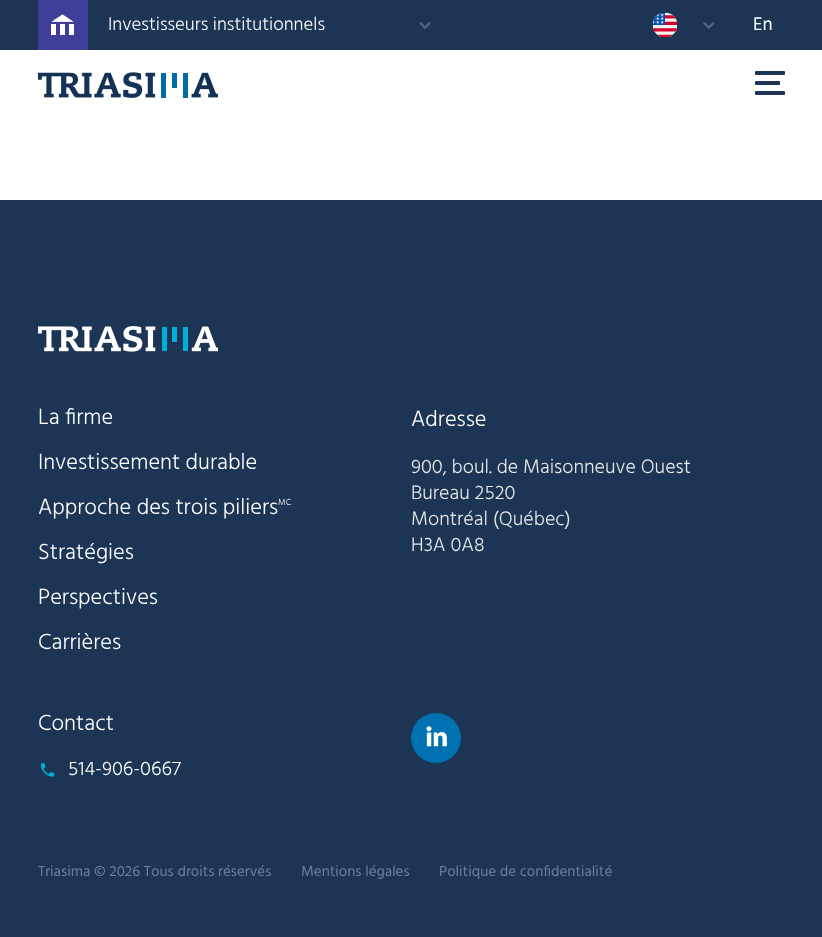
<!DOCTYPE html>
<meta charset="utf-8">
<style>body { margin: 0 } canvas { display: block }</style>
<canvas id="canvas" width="822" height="937"></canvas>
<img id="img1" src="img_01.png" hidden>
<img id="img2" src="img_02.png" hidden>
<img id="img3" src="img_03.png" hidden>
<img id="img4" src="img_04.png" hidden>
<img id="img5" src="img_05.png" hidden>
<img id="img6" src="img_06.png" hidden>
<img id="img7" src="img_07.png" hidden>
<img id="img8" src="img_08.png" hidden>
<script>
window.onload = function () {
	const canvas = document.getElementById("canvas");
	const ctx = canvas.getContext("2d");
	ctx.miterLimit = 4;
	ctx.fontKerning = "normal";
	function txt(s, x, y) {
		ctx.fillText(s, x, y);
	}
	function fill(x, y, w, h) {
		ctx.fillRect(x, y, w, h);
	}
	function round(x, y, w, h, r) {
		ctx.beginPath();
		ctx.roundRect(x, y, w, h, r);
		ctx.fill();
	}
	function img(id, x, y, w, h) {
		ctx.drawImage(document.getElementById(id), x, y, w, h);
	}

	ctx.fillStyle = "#FFFFFF";
	fill(0, 0, 822, 937);
	ctx.fillStyle = "#1D3555";
	fill(0, 0, 822, 50);
	ctx.fillStyle = "#3F3E98";
	fill(38, 0, 50, 50);
	img("img1", 51, 14, 23, 21);
	img("img2", 419, 22, 12, 7);
	img("img3", 653, 13, 25, 25);
	img("img4", 703, 22, 12, 7);
	img("img5", 38, 72, 180, 26);
	ctx.fillStyle = "#1D3555";
	round(755, 71, 30, 4, 1);
	round(755, 81, 25, 4, 1);
	round(755, 91, 30, 4, 1);
	fill(0, 200, 822, 737);
	img("img6", 38, 326, 180, 26);
	img("img7", 40, 763, 15, 14);
	ctx.fillStyle = "#0072B1";
	ctx.beginPath();
	ctx.arc(436, 738, 25, 0, Math.PI * 2);
	ctx.fill();
	img("img8", 426, 726, 21, 21);
	ctx.font = "300 18.75px Hind";
	ctx.fillStyle = "#FFFFFF";
	txt("Investisseurs institutionnels", 108, 30);
	ctx.font = "18.75px Hind";
	txt("En", 753, 30);
	ctx.font = "300 22.5px Hind";
	txt("La firme", 38, 424);
	txt("Investissement durable", 38, 469);
	txt("Approche des trois piliers", 38, 514);
	ctx.font = "300 9px Hind";
	txt("MC", 278, 505);
	ctx.font = "300 22.5px Hind";
	txt("Stratégies", 38, 559);
	txt("Perspectives", 38, 604);
	txt("Carrières", 38, 649);
	txt("Adresse", 411, 426);
	ctx.font = "300 20px Hind";
	ctx.fillStyle = "#E7E8E7";
	txt("900, boul. de Maisonneuve Ouest", 411, 473);
	txt("Bureau 2520", 411, 499);
	txt("Montréal (Québec)", 411, 525);
	txt("H3A 0A8", 411, 551);
	ctx.font = "300 22.5px Hind";
	ctx.fillStyle = "#FFFFFF";
	txt("Contact", 38, 730);
	ctx.font = "300 20px Hind";
	txt("514-906-0667", 68, 775);
	ctx.font = "15px Hind";
	ctx.fillStyle = "#6F8197";
	txt("Triasima © 2026 Tous droits réservés", 38, 876);
	txt("Mentions légales", 301, 876);
	txt("Politique de confidentialité", 439, 876);
};
</script>
